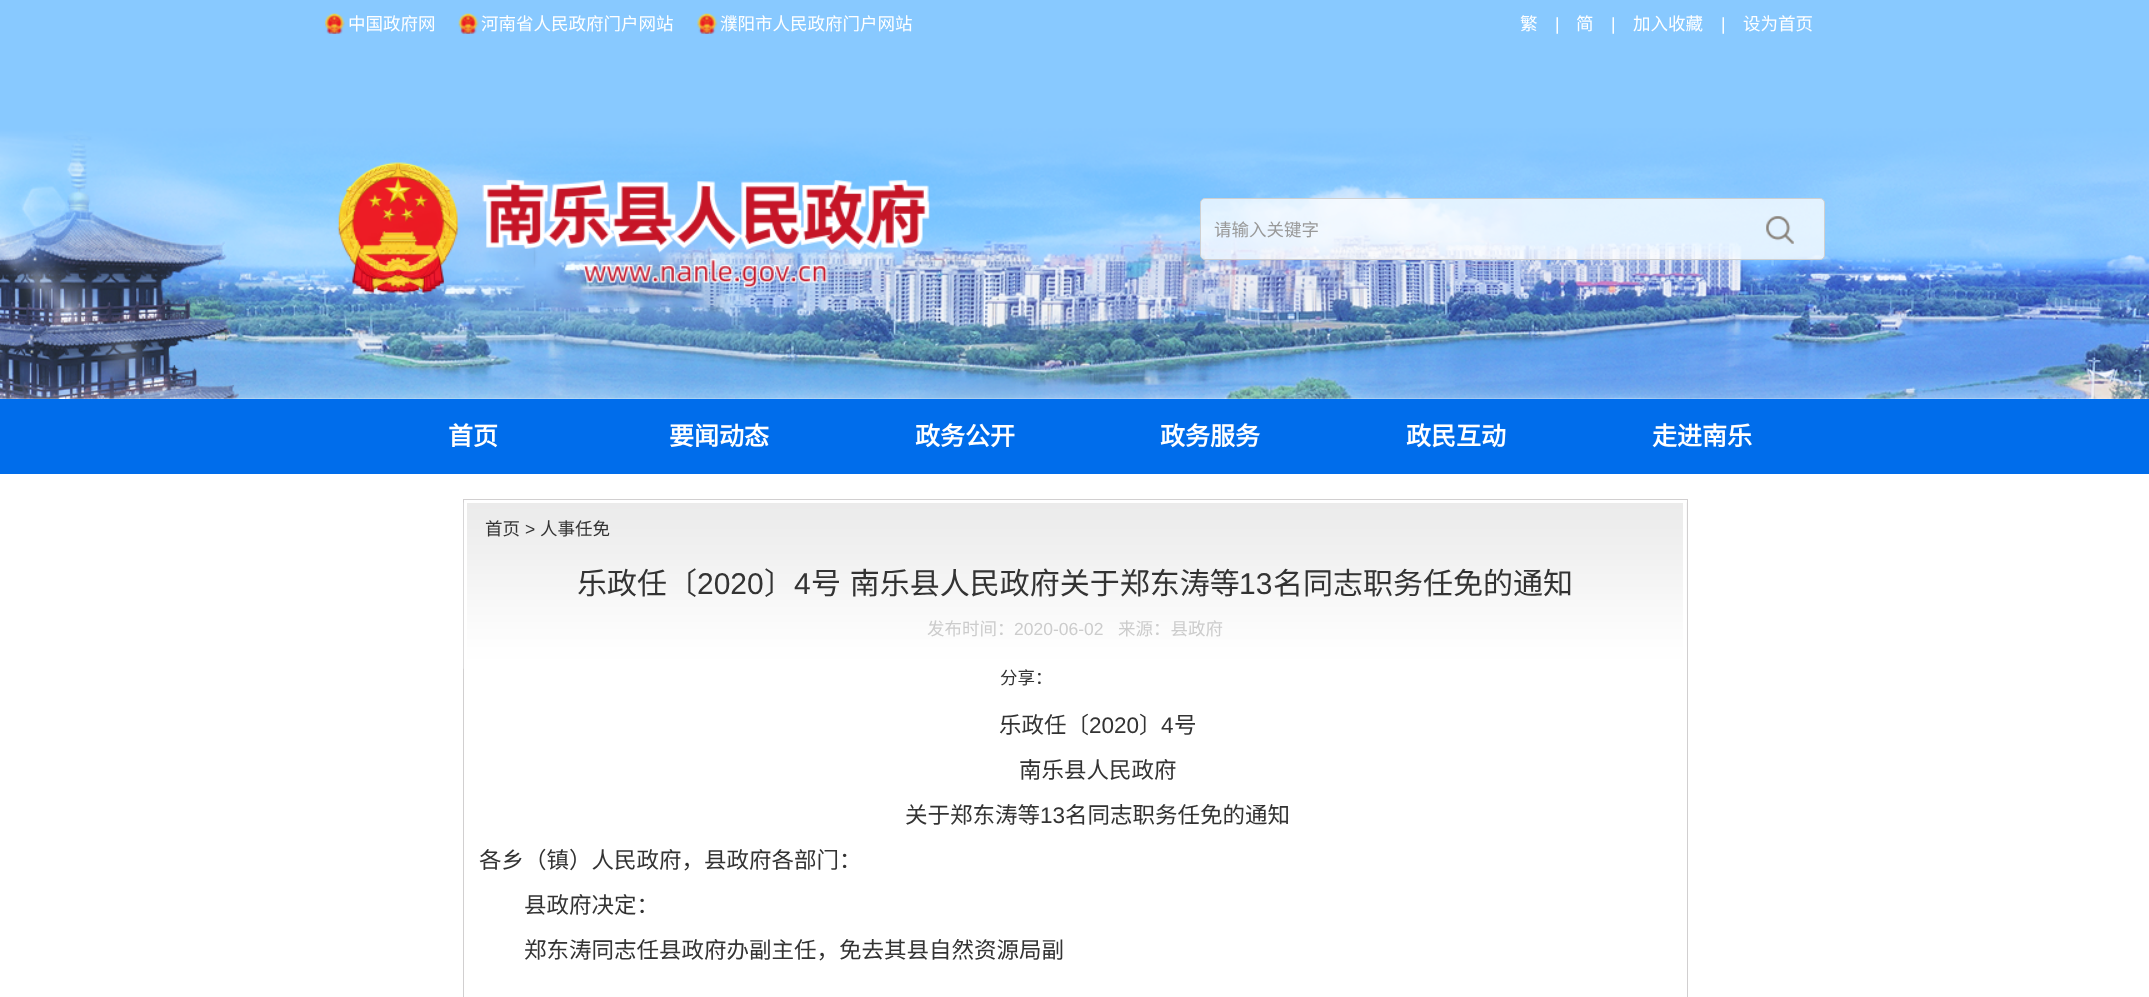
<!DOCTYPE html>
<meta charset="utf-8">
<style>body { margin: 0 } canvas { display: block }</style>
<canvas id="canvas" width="2149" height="997"></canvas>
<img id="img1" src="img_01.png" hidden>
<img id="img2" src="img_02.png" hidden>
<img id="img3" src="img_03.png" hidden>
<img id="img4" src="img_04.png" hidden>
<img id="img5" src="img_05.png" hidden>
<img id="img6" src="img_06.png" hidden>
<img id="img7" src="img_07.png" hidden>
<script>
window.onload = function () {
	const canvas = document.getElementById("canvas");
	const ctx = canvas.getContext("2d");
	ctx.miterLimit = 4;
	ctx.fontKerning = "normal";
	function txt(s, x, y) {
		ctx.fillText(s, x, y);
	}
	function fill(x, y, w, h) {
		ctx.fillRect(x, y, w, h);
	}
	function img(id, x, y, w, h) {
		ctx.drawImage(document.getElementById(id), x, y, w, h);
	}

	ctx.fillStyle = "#FFFFFF";
	fill(0, 0, 2149, 997);
	ctx.fillStyle = "#88C9FF";
	fill(0, 0, 2149, 48);
	img("img1", 325, 13, 20, 21);
	img("img2", 458, 13, 21, 21);
	img("img3", 697, 13, 21, 21);
	img("img4", 0, 48, 2149, 351);
	img("img5", 337, 162, 593, 131);
	ctx.fillStyle = "rgba(255, 255, 255, 0.75)";
	ctx.beginPath();
	ctx.roundRect(1200.5, 198.5, 624, 61, 4.5);
	ctx.fill();
	ctx.strokeStyle = "#D0D0D0";
	ctx.stroke();
	img("img6", 1766, 216, 28, 28);
	ctx.fillStyle = "#006DEB";
	fill(0, 399, 2149, 75);
	ctx.strokeStyle = "#D1CFD0";
	ctx.strokeRect(463.5, 499.5, 1224, 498);
	img("img7", 463, 502, 1224, 167);
	ctx.strokeStyle = "#FFFFFF";
	ctx.lineWidth = 3;
	ctx.strokeRect(465.5, 501.5, 1219, 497);
	ctx.font = "17.5px Noto Sans CJK SC";
	ctx.fillStyle = "#FFFFFF";
	txt("中国政府网", 348, 30);
	txt("河南省人民政府门户网站", 481, 30);
	txt("濮阳市人民政府门户网站", 720, 30);
	txt("繁", 1520, 30);
	ctx.font = "17.5px Liberation Sans";
	txt("|", 1555, 30);
	ctx.font = "17.5px Noto Sans CJK SC";
	txt("简", 1576, 30);
	ctx.font = "17.5px Liberation Sans";
	txt("|", 1611, 30);
	ctx.font = "17.5px Noto Sans CJK SC";
	txt("加入收藏", 1633, 30);
	ctx.font = "17.5px Liberation Sans";
	txt("|", 1721, 30);
	ctx.font = "17.5px Noto Sans CJK SC";
	txt("设为首页", 1743, 30);
	ctx.fillStyle = "#999999";
	txt("请输入关键字", 1214, 236);
	ctx.font = "bold 25px Noto Sans CJK SC";
	ctx.fillStyle = "#FFFFFF";
	txt("首页", 448, 445);
	txt("要闻动态", 669, 445);
	txt("政务公开", 915, 445);
	txt("政务服务", 1160, 445);
	txt("政民互动", 1406, 445);
	txt("走进南乐", 1652, 445);
	ctx.font = "17.5px Noto Sans CJK SC";
	ctx.fillStyle = "#333333";
	txt("首页", 485, 535);
	ctx.font = "17.5px Liberation Sans";
	txt(">", 525, 535);
	ctx.font = "17.5px Noto Sans CJK SC";
	txt("人事任免", 540, 535);
	ctx.font = "30px Noto Sans CJK SC";
	txt("乐政任〔", 577, 594);
	ctx.font = "30px Liberation Sans";
	txt("2020", 697, 594);
	ctx.font = "30px Noto Sans CJK SC";
	txt("〕", 764, 594);
	ctx.font = "30px Liberation Sans";
	txt("4", 794, 594);
	ctx.wordSpacing = "2px";
	ctx.font = "30px Noto Sans CJK SC";
	txt("号 南乐县人民政府关于郑东涛等", 811, 594);
	ctx.wordSpacing = "0px";
	ctx.font = "30px Liberation Sans";
	txt("13", 1239, 594);
	ctx.font = "30px Noto Sans CJK SC";
	txt("名同志职务任免的通知", 1273, 594);
	ctx.font = "17.5px Noto Sans CJK SC";
	ctx.fillStyle = "#CCCCCC";
	txt("发布时间：", 927, 635);
	ctx.font = "17.5px Liberation Sans";
	txt("2020-06-02", 1014, 635);
	ctx.font = "17.5px Noto Sans CJK SC";
	txt("来源：县政府", 1118, 635);
	ctx.fillStyle = "#333333";
	txt("分享：", 1000, 684);
	ctx.font = "22.5px Noto Sans CJK SC";
	txt("乐政任〔", 999, 733);
	ctx.font = "22.5px Liberation Sans";
	txt("2020", 1089, 733);
	ctx.font = "22.5px Noto Sans CJK SC";
	txt("〕", 1139, 733);
	ctx.font = "22.5px Liberation Sans";
	txt("4", 1161, 733);
	ctx.font = "22.5px Noto Sans CJK SC";
	txt("号", 1174, 733);
	txt("南乐县人民政府", 1019, 778);
	txt("关于郑东涛等", 905, 823);
	ctx.font = "22.5px Liberation Sans";
	txt("13", 1040, 823);
	ctx.font = "22.5px Noto Sans CJK SC";
	txt("名同志职务任免的通知", 1065, 823);
	txt("各乡（镇）人民政府，县政府各部门：", 479, 868);
	txt("县政府决定：", 524, 913);
	txt("郑东涛同志任县政府办副主任，免去其县自然资源局副", 524, 958);
};
</script>
